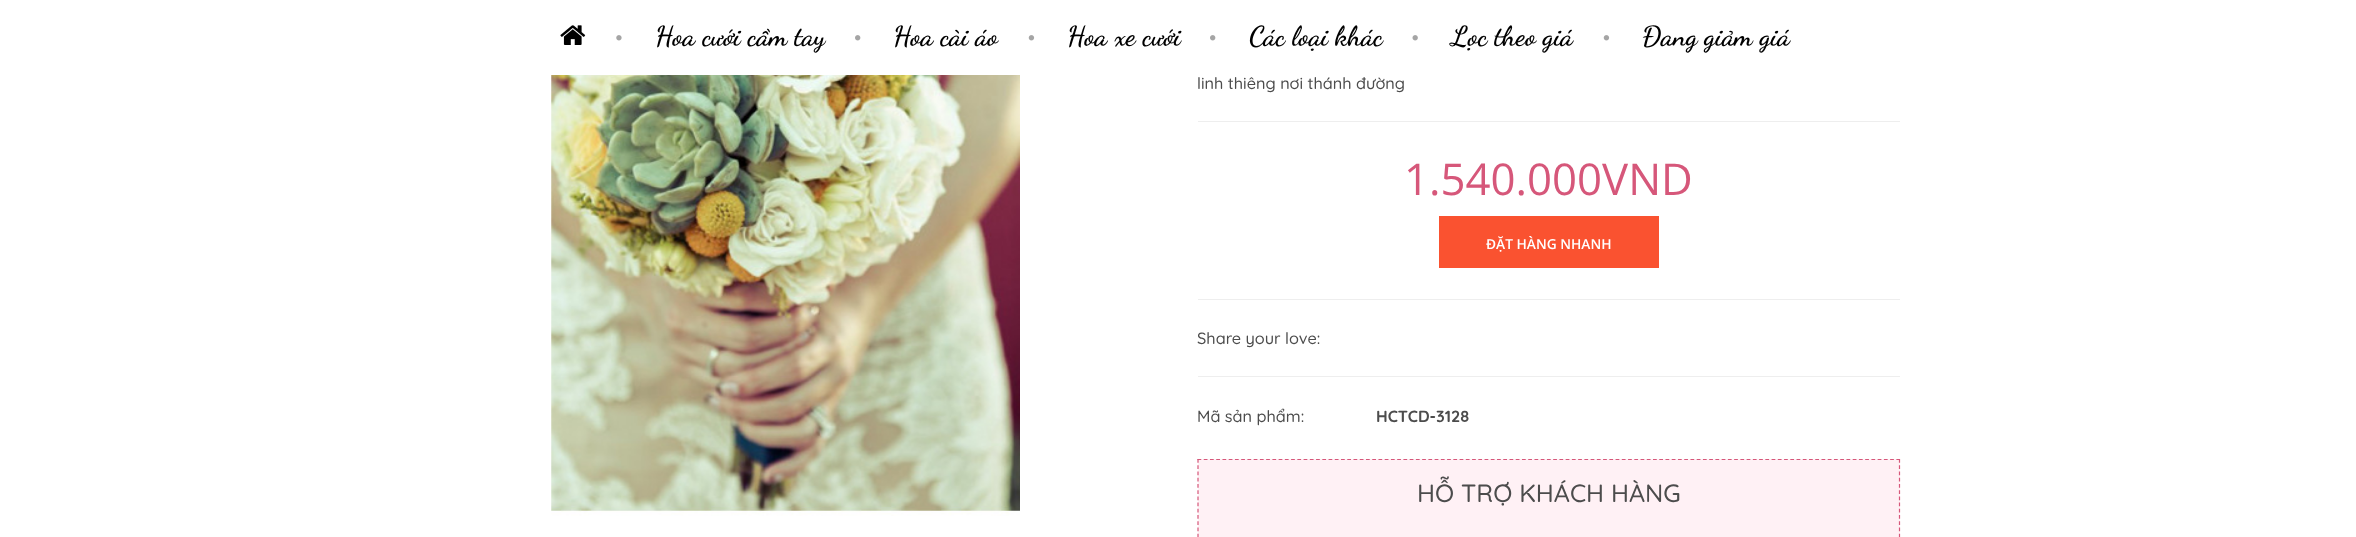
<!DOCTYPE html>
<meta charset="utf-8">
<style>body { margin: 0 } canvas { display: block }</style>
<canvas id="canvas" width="2356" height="537"></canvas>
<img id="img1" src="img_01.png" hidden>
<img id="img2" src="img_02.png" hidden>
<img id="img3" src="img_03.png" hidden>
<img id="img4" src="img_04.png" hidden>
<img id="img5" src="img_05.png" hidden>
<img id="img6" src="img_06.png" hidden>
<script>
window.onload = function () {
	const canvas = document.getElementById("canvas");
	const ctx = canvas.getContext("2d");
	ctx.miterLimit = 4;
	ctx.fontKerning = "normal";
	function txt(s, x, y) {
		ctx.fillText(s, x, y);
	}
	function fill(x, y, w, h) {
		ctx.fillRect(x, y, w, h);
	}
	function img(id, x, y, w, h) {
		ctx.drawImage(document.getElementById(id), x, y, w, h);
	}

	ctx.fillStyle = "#FFFFFF";
	fill(0, 0, 2356, 537);
	img("img1", 560, 25, 26, 20);
	img("img2", 616, 35, 6, 6);
	img("img3", 855, 35, 6, 6);
	img("img4", 1028, 35, 7, 6);
	img("img3", 1210, 35, 6, 6);
	img("img5", 1412, 35, 6, 6);
	img("img4", 1603, 35, 7, 6);
	img("img6", 551, 75, 469, 441);
	ctx.fillStyle = "#EEEEEE";
	fill(1198, 121, 702, 1);
	ctx.fillStyle = "#FA5230";
	fill(1439, 216, 220, 52);
	ctx.fillStyle = "#EEEEEE";
	fill(1198, 299, 702, 1);
	fill(1198, 376, 702, 1);
	ctx.fillStyle = "#FFF1F5";
	fill(1198, 459, 702, 78);
	ctx.beginPath();
	ctx.moveTo(1197.5, 459.5);
	ctx.lineTo(1900, 459.5);
	ctx.strokeStyle = "#D6577A";
	ctx.lineWidth = 1.2;
	ctx.setLineDash([3.75, 2.49]);
	ctx.stroke();
	ctx.beginPath();
	ctx.moveTo(1899.5, 459);
	ctx.lineTo(1899.5, 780);
	ctx.setLineDash([3.75, 2.48]);
	ctx.stroke();
	ctx.beginPath();
	ctx.moveTo(1198, 459);
	ctx.lineTo(1198, 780);
	ctx.stroke();
	ctx.font = "bold 27.5px Dancing Script";
	ctx.fillStyle = "#000000";
	txt("Hoa cưới cầm tay", 655, 45);
	txt("Hoa cài áo", 893, 45);
	txt("Hoa xe cưới", 1067, 45);
	txt("Các loại khác", 1249, 45);
	txt("Lọc theo giá", 1451, 45);
	txt("Đang giảm giá", 1642, 45);
	ctx.font = "500 16.25px Quicksand";
	ctx.fillStyle = "#4C4C4C";
	txt("linh thiêng nơi thánh đường", 1197, 89);
	ctx.font = "43.75px Open Sans";
	ctx.fillStyle = "#D6577A";
	txt("1.540.000VND", 1404, 195);
	ctx.font = "600 13.75px Open Sans";
	ctx.fillStyle = "#FFFFFF";
	txt("ĐẶT HÀNG NHANH", 1486, 249);
	ctx.font = "500 16.25px Quicksand";
	ctx.fillStyle = "#4C4C4C";
	txt("Share your love:", 1197, 344);
	txt("Mã sản phẩm:", 1197, 422);
	ctx.font = "bold 16.25px Quicksand";
	txt("HCTCD-3128", 1376, 422);
	ctx.font = "500 25px Quicksand";
	txt("HỖ TRỢ KHÁCH HÀNG", 1417, 502);
};
</script>
